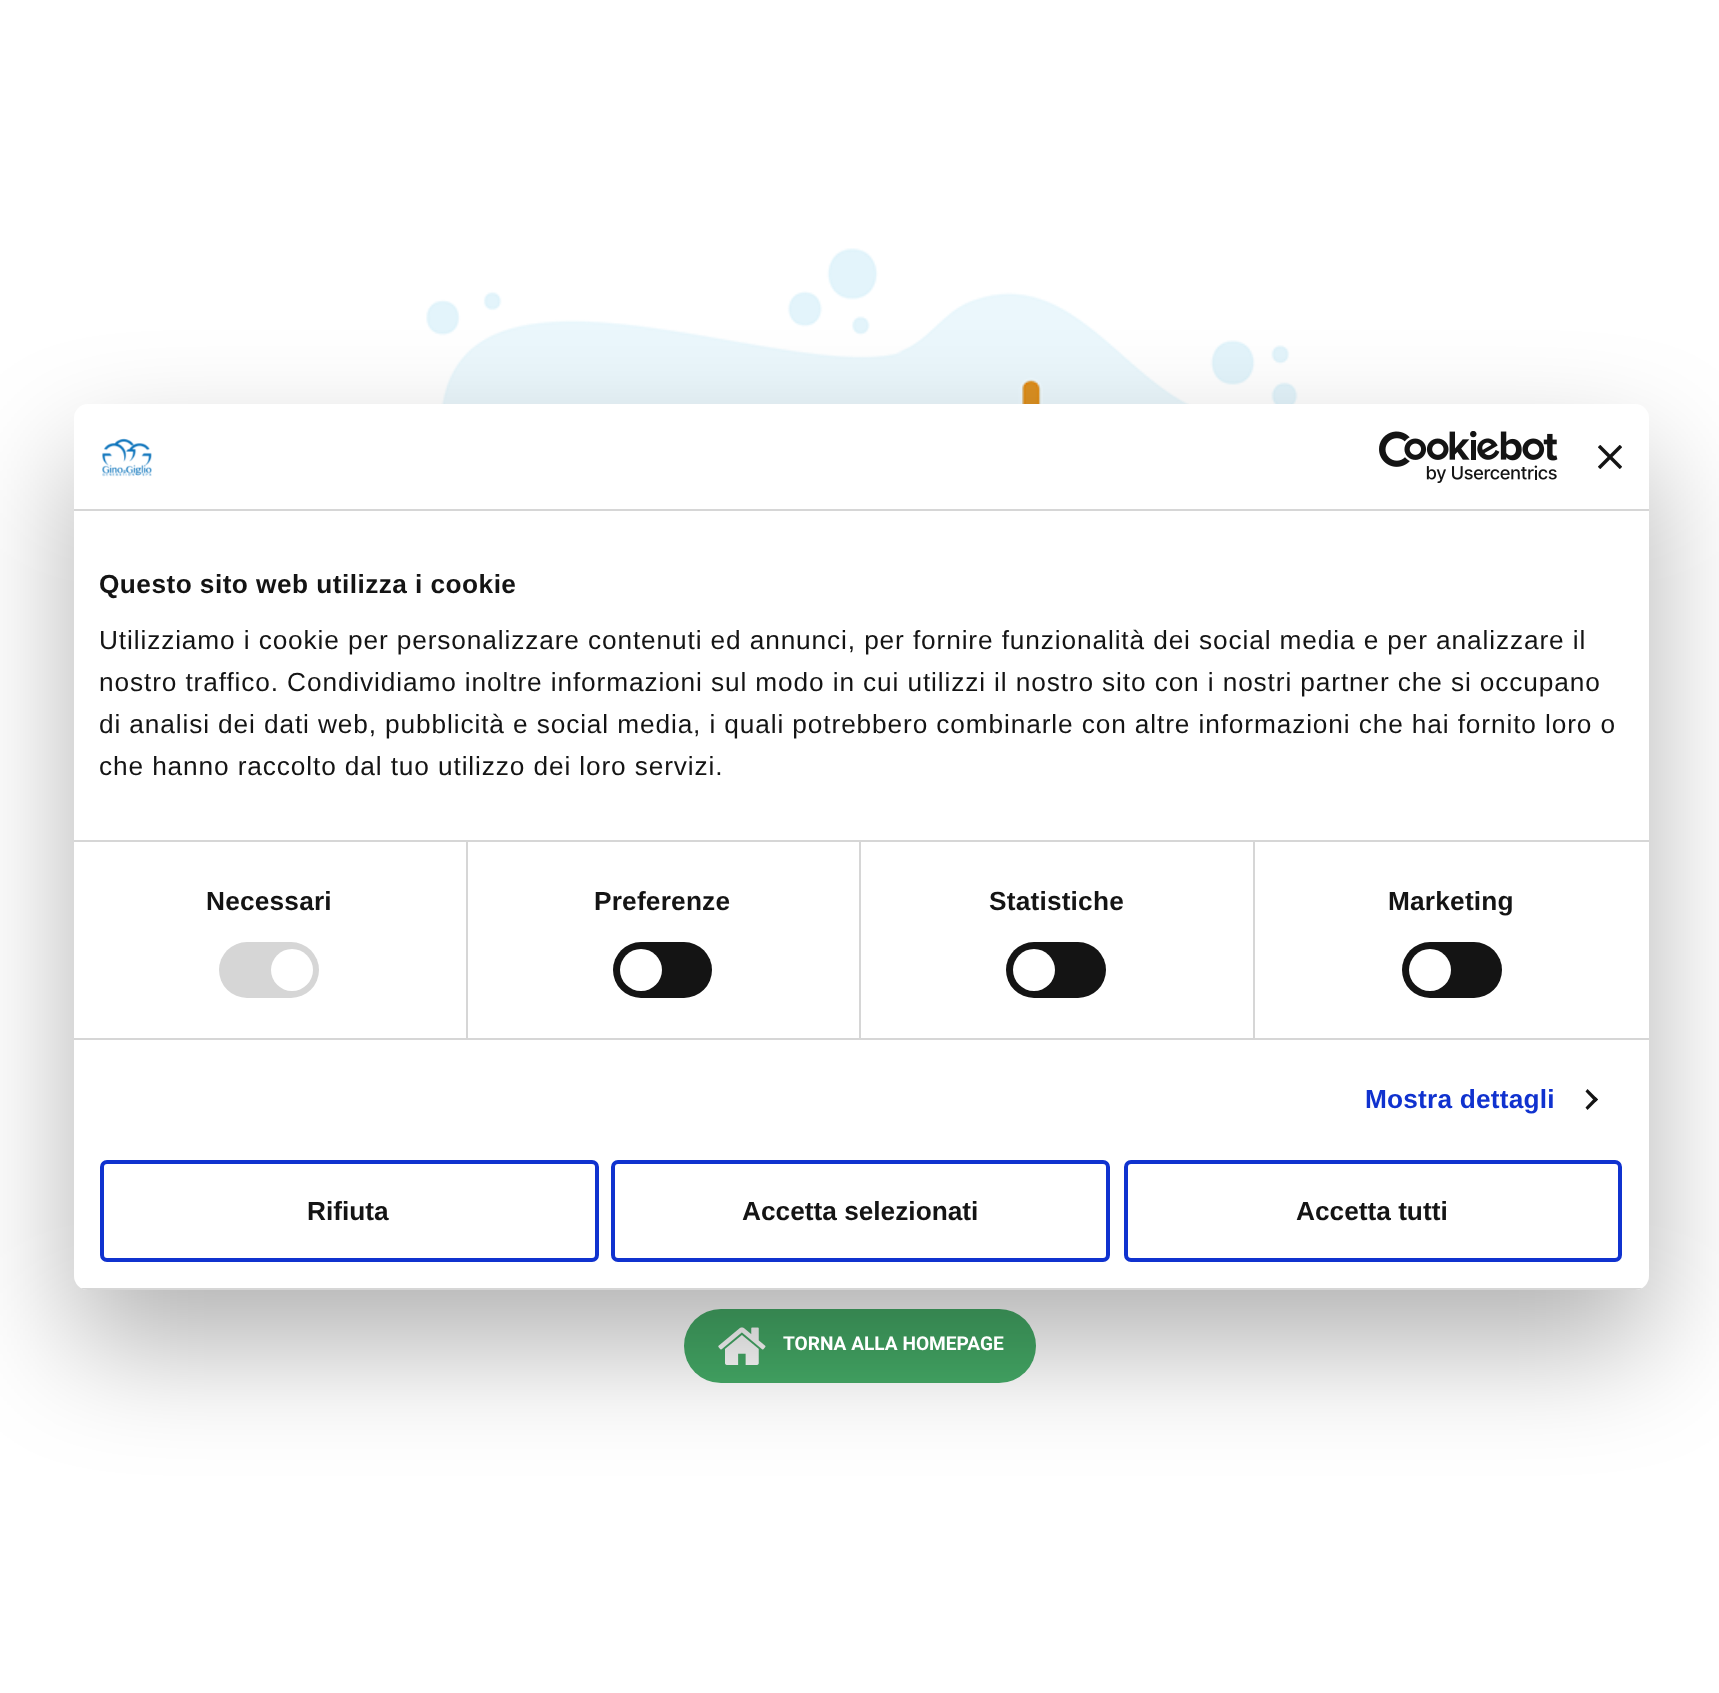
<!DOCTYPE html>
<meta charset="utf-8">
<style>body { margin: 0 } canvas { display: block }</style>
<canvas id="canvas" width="1719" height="1693"></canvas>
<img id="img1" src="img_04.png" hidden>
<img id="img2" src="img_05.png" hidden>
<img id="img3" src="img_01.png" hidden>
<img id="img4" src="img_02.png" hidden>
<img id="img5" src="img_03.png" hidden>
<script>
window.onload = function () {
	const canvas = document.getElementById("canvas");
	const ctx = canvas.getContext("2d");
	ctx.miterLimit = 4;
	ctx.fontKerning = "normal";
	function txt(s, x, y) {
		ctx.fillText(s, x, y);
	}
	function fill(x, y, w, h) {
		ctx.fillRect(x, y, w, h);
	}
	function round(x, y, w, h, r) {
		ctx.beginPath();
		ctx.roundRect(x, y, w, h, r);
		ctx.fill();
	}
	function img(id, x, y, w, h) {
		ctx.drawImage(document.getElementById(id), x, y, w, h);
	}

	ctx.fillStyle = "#FFFFFF";
	fill(0, 0, 1719, 1693);
	img("img1", 426, 248, 872, 156);
	ctx.fillStyle = "#45AB67";
	round(684, 1309, 352, 74, 37);
	img("img2", 718, 1327, 48, 38);
	ctx.fillStyle = "rgba(0, 0, 0, 0.3)";
	ctx.filter = "blur(59.5px)";
	ctx.beginPath();
	ctx.roundRect(74, 460, 1575, 886, 14);
	ctx.fill();
	ctx.filter = "none";
	ctx.fillStyle = "#FFFFFF";
	round(74, 404, 1575, 886, 14);
	ctx.fillStyle = "#D6D6D6";
	fill(74, 509, 1575, 2);
	img("img3", 102, 438, 50, 39);
	img("img4", 1379, 431, 179, 52);
	img("img5", 1598, 445, 24, 24);
	fill(74, 840, 1575, 2);
	fill(74, 1038, 1575, 2);
	fill(466, 842, 2, 196);
	round(219, 942, 100, 56, 28);
	ctx.fillStyle = "#FFFFFF";
	ctx.beginPath();
	ctx.arc(292, 970, 21, 0, Math.PI * 2);
	ctx.fill();
	ctx.fillStyle = "#D6D6D6";
	fill(859, 842, 2, 196);
	ctx.fillStyle = "#141414";
	round(613, 942, 99, 56, 28);
	ctx.fillStyle = "#FFFFFF";
	ctx.beginPath();
	ctx.arc(641, 970, 21, 0, Math.PI * 2);
	ctx.fill();
	ctx.fillStyle = "#D6D6D6";
	fill(1253, 842, 2, 196);
	ctx.fillStyle = "#141414";
	round(1006, 942, 100, 56, 28);
	ctx.fillStyle = "#FFFFFF";
	ctx.beginPath();
	ctx.arc(1034, 970, 21, 0, Math.PI * 2);
	ctx.fill();
	ctx.fillStyle = "#141414";
	round(1402, 942, 100, 56, 28);
	ctx.fillStyle = "#FFFFFF";
	ctx.beginPath();
	ctx.arc(1430, 970, 21, 0, Math.PI * 2);
	ctx.fill();
	ctx.fillStyle = "#141414";
	ctx.beginPath();
	ctx.moveTo(1587.5, 1089);
	ctx.lineTo(1598, 1099.5);
	ctx.lineTo(1595.5, 1102);
	ctx.lineTo(1585.5, 1091.5);
	ctx.closePath();
	ctx.fill();
	ctx.beginPath();
	ctx.moveTo(1595.5, 1097);
	ctx.lineTo(1598, 1099.5);
	ctx.lineTo(1587.5, 1110);
	ctx.lineTo(1585.5, 1107.5);
	ctx.closePath();
	ctx.fill();
	ctx.save();
	ctx.beginPath();
	ctx.roundRect(74, 404, 1575, 886, 14);
	ctx.clip();
	ctx.fillStyle = "#D6D6D6";
	fill(74, 1288, 1575, 2);
	ctx.restore();
	ctx.beginPath();
	ctx.roundRect(102, 1162, 495, 98, 5);
	ctx.strokeStyle = "#1032CF";
	ctx.lineWidth = 4;
	ctx.stroke();
	ctx.beginPath();
	ctx.roundRect(613, 1162, 495, 98, 5);
	ctx.stroke();
	ctx.beginPath();
	ctx.roundRect(1126, 1162, 494, 98, 5);
	ctx.stroke();
	ctx.letterSpacing = "0.45px";
	ctx.font = "bold 26.25px Liberation Sans";
	txt("Questo sito web utilizza i cookie", 99, 593);
	ctx.letterSpacing = "0.88px";
	ctx.font = "26.25px Liberation Sans";
	txt("Utilizziamo i cookie per personalizzare contenuti ed annunci, per fornire funzionalità dei social media e per analizzare il", 99, 649);
	txt("nostro traffico. Condividiamo inoltre informazioni sul modo in cui utilizzi il nostro sito con i nostri partner che si occupano", 99, 691);
	txt("di analisi dei dati web, pubblicità e social media, i quali potrebbero combinarle con altre informazioni che hai fornito loro o", 99, 733);
	txt("che hanno raccolto dal tuo utilizzo dei loro servizi.", 99, 775);
	ctx.letterSpacing = "0.2px";
	ctx.font = "bold 26.25px Liberation Sans";
	txt("Necessari", 206, 910);
	txt("Preferenze", 594, 910);
	txt("Statistiche", 989, 910);
	txt("Marketing", 1388, 910);
	ctx.fillStyle = "#1032CF";
	txt("Mostra dettagli", 1365, 1108);
	ctx.letterSpacing = "0px";
	ctx.fillStyle = "#141414";
	txt("Rifiuta", 307, 1220);
	txt("Accetta selezionati", 742, 1220);
	txt("Accetta tutti", 1296, 1220);
	ctx.font = "bold 19.1px Roboto";
	ctx.fillStyle = "#FFFFFF";
	txt("TORNA ALLA HOMEPAGE", 783, 1350);
};
</script>
